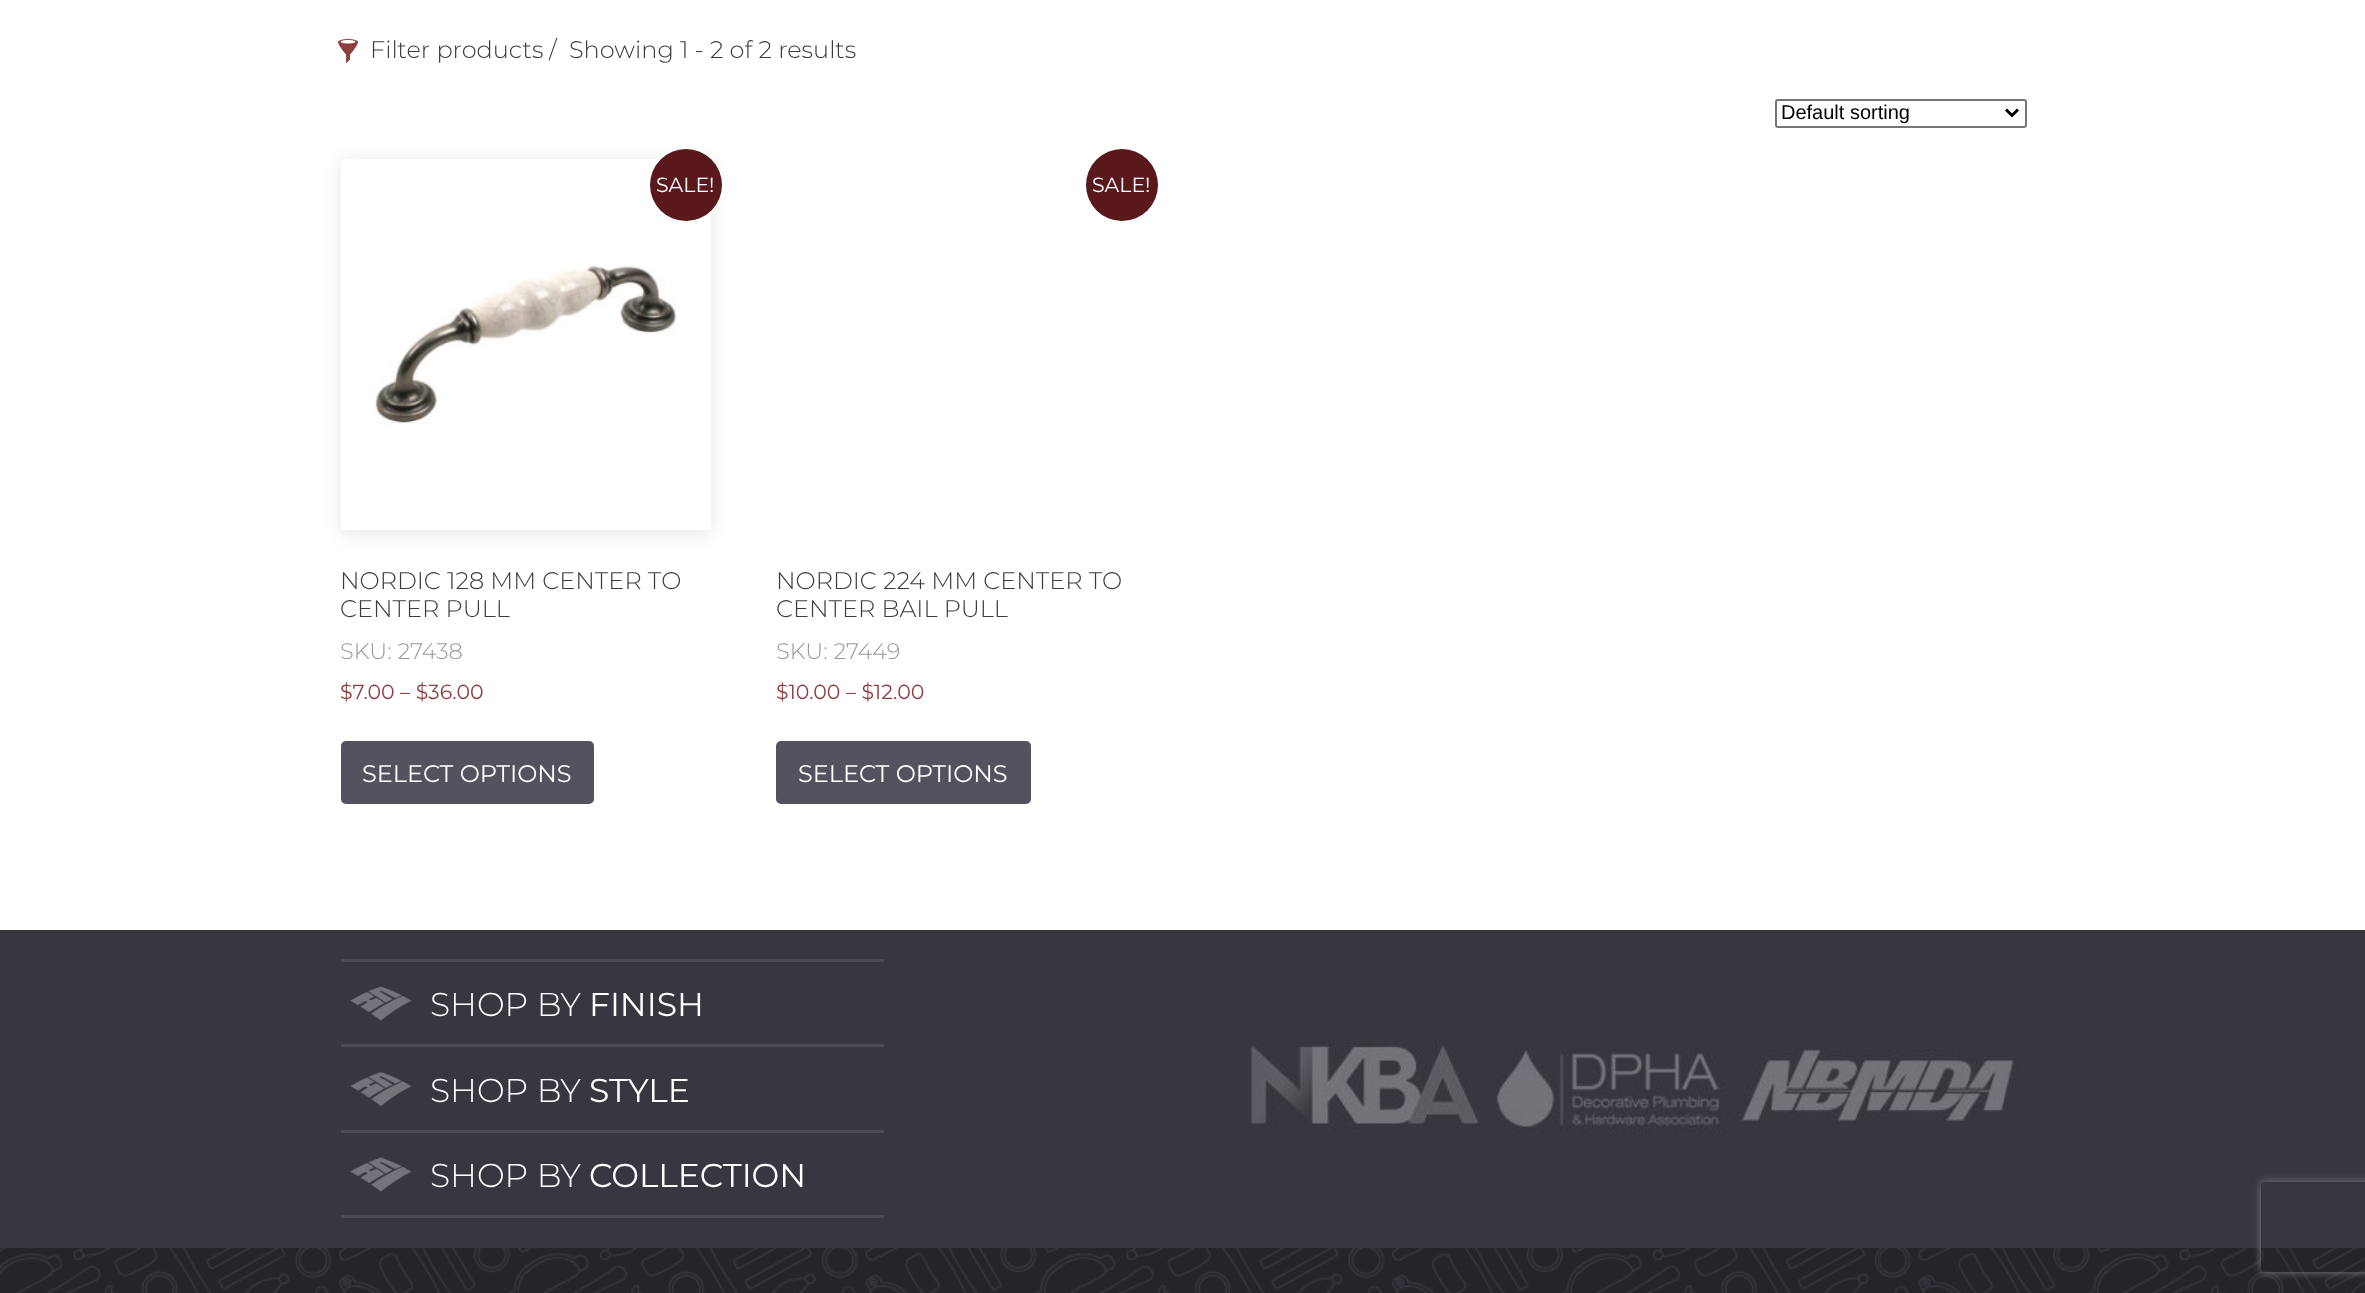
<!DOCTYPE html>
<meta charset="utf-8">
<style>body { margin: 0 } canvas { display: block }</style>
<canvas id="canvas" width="2365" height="1293"></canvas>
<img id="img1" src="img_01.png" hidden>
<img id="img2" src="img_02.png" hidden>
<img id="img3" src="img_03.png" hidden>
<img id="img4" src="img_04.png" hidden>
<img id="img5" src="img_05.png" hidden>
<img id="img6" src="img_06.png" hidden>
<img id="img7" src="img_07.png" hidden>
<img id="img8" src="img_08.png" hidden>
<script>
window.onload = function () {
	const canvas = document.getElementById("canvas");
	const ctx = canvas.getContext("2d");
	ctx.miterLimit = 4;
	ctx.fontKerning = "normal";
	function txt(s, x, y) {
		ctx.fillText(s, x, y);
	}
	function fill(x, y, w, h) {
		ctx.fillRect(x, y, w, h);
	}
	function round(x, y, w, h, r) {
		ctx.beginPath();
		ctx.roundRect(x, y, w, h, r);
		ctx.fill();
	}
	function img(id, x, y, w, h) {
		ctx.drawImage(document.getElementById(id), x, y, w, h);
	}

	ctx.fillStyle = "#FFFFFF";
	fill(0, 0, 2365, 1293);
	img("img1", 338, 39, 20, 24);
	ctx.beginPath();
	ctx.roundRect(1776, 100, 250, 27, 2);
	ctx.strokeStyle = "#767676";
	ctx.lineWidth = 2;
	ctx.stroke();
	ctx.beginPath();
	ctx.moveTo(2006, 109.5);
	ctx.lineTo(2012, 115.5);
	ctx.lineTo(2018, 109.5);
	ctx.strokeStyle = "#000000";
	ctx.lineWidth = 3;
	ctx.stroke();
	ctx.save();
	ctx.beginPath();
	ctx.moveTo(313, 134);
	ctx.lineTo(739, 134);
	ctx.lineTo(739, 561);
	ctx.lineTo(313, 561);
	ctx.closePath();
	ctx.moveTo(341, 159);
	ctx.lineTo(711, 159);
	ctx.lineTo(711, 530);
	ctx.lineTo(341, 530);
	ctx.closePath();
	ctx.clip("evenodd");
	ctx.fillStyle = "rgba(0, 0, 0, 0.1)";
	ctx.filter = "blur(9px)";
	ctx.beginPath();
	ctx.rect(341, 162, 370, 371);
	ctx.fill();
	ctx.filter = "none";
	ctx.restore();
	img("img2", 356, 263, 340, 267);
	ctx.fillStyle = "#59181C";
	ctx.beginPath();
	ctx.arc(686, 185, 36, 0, Math.PI * 2);
	ctx.fill();
	ctx.fillStyle = "#53535F";
	round(341, 741, 253, 63, 5);
	ctx.fillStyle = "#59181C";
	ctx.beginPath();
	ctx.arc(1122, 185, 36, 0, Math.PI * 2);
	ctx.fill();
	ctx.fillStyle = "#53535F";
	round(776, 741, 255, 63, 5);
	ctx.fillStyle = "#38363F";
	fill(0, 930, 2365, 318);
	ctx.fillStyle = "#4C4A53";
	fill(341, 959, 543, 3);
	img("img3", 350, 986, 62, 35);
	fill(341, 1044, 543, 3);
	img("img4", 350, 1072, 62, 34);
	fill(341, 1130, 543, 3);
	img("img3", 350, 1157, 62, 35);
	fill(341, 1215, 543, 3);
	img("img5", 1250, 1040, 230, 91);
	img("img6", 1496, 1050, 229, 84);
	img("img7", 1733, 1049, 287, 73);
	ctx.fillStyle = "#262329";
	fill(0, 1248, 2365, 45);
	img("img8", 0, 1248, 2365, 45);
	ctx.save();
	ctx.beginPath();
	ctx.moveTo(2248, 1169);
	ctx.lineTo(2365, 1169);
	ctx.lineTo(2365, 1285);
	ctx.lineTo(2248, 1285);
	ctx.closePath();
	ctx.moveTo(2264, 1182);
	ctx.lineTo(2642, 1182);
	ctx.bezierCurveTo(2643.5, 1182, 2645, 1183.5, 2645, 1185);
	ctx.lineTo(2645, 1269);
	ctx.bezierCurveTo(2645, 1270.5, 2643.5, 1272, 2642, 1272);
	ctx.lineTo(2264, 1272);
	ctx.bezierCurveTo(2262.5, 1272, 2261, 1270.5, 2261, 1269);
	ctx.lineTo(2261, 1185);
	ctx.bezierCurveTo(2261, 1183.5, 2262.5, 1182, 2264, 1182);
	ctx.closePath();
	ctx.clip("evenodd");
	ctx.fillStyle = "#808080";
	ctx.filter = "blur(4px)";
	ctx.beginPath();
	ctx.roundRect(2261, 1182, 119, 90, 3);
	ctx.fill();
	ctx.filter = "none";
	ctx.restore();
	ctx.font = "300 24px Montserrat";
	ctx.fillStyle = "#3C3A44";
	txt("Filter products", 370, 58);
	txt("/", 549, 58);
	txt("Showing 1 - 2 of 2 results", 569, 58);
	ctx.font = "20px Liberation Sans";
	ctx.fillStyle = "#000000";
	txt("Default sorting", 1781, 119);
	ctx.font = "20.5px Montserrat";
	ctx.fillStyle = "#FFFFFF";
	txt("SALE!", 656, 192);
	ctx.font = "300 24px Montserrat";
	ctx.fillStyle = "#3C3A44";
	txt("NORDIC 128 MM CENTER TO", 340, 589);
	txt("CENTER PULL", 340, 617);
	ctx.font = "300 22.5px Montserrat";
	ctx.fillStyle = "#999999";
	txt("SKU: 27438", 340, 659);
	ctx.font = "20.5px Montserrat";
	ctx.fillStyle = "#8C3F3F";
	txt("$7.00 – $36.00", 340, 699);
	ctx.font = "24px Montserrat";
	ctx.fillStyle = "#FFFFFF";
	txt("SELECT OPTIONS", 362, 782);
	ctx.font = "20.5px Montserrat";
	txt("SALE!", 1092, 192);
	ctx.font = "300 24px Montserrat";
	ctx.fillStyle = "#3C3A44";
	txt("NORDIC 224 MM CENTER TO", 776, 589);
	txt("CENTER BAIL PULL", 776, 617);
	ctx.font = "300 22.5px Montserrat";
	ctx.fillStyle = "#999999";
	txt("SKU: 27449", 776, 659);
	ctx.font = "20.5px Montserrat";
	ctx.fillStyle = "#8C3F3F";
	txt("$10.00 – $12.00", 776, 699);
	ctx.font = "24px Montserrat";
	ctx.fillStyle = "#FFFFFF";
	txt("SELECT OPTIONS", 798, 782);
	ctx.font = "300 33px Montserrat";
	txt("SHOP BY", 430, 1016);
	ctx.font = "33px Montserrat";
	txt("FINISH", 589, 1016);
	ctx.font = "300 33px Montserrat";
	txt("SHOP BY", 430, 1102);
	ctx.font = "33px Montserrat";
	txt("STYLE", 589, 1102);
	ctx.font = "300 33px Montserrat";
	txt("SHOP BY", 430, 1187);
	ctx.font = "33px Montserrat";
	txt("COLLECTION", 589, 1187);
};
</script>
